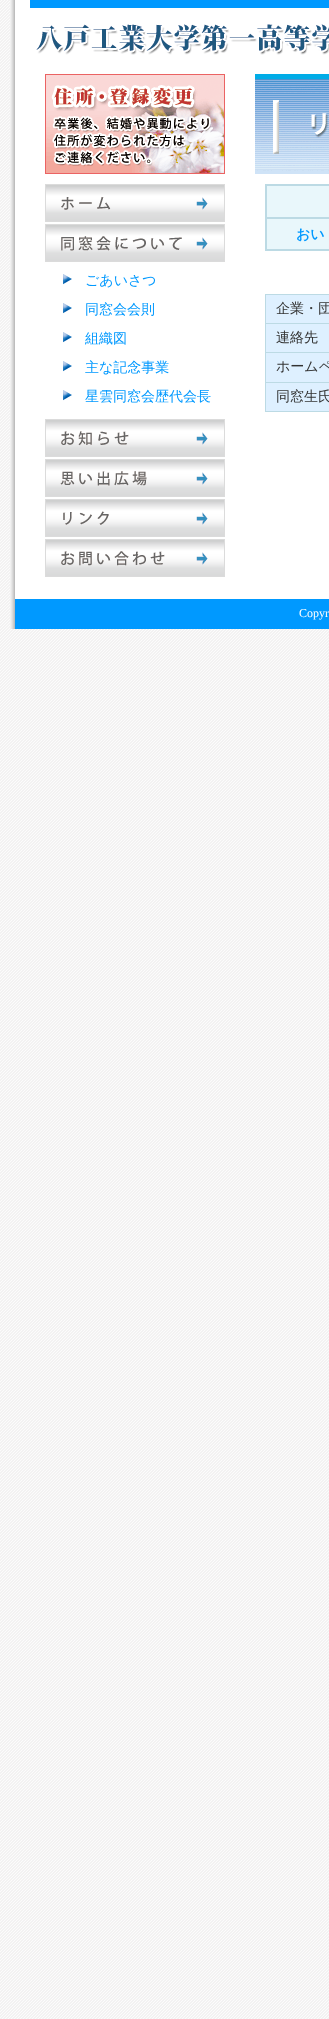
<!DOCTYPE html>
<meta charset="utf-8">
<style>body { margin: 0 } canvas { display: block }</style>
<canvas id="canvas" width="329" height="2019"></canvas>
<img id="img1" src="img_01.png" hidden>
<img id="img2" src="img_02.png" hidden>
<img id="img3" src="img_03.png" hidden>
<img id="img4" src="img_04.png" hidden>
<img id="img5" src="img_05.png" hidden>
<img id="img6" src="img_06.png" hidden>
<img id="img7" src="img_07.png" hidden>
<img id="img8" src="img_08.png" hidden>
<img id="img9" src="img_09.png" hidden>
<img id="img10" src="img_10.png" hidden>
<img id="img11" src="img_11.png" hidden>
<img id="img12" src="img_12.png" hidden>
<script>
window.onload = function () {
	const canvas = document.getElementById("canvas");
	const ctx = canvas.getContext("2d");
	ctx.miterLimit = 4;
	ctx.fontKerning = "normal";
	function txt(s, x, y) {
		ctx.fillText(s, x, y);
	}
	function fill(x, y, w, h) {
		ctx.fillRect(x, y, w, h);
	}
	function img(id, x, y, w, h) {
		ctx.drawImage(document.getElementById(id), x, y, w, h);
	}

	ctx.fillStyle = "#FFFFFF";
	fill(0, 0, 329, 2019);
	img("img1", 0, 0, 329, 2019);
	img("img2", 10, 0, 319, 629);
	ctx.fillStyle = "#0099FF";
	fill(30, 0, 299, 8);
	img("img3", 36, 24, 293, 31);
	img("img4", 45, 74, 180, 100);
	img("img5", 45, 184, 180, 38);
	img("img6", 45, 224, 180, 38);
	img("img7", 63, 274, 9, 11);
	img("img7", 63, 303, 9, 11);
	img("img7", 63, 332, 9, 11);
	img("img7", 63, 361, 9, 11);
	img("img7", 63, 390, 9, 11);
	img("img8", 45, 419, 180, 38);
	img("img9", 45, 459, 180, 38);
	img("img10", 45, 499, 180, 38);
	img("img11", 45, 539, 180, 38);
	img("img12", 255, 74, 74, 100);
	ctx.fillStyle = "#BCDAE4";
	fill(265, 184, 64, 2);
	fill(265, 249, 64, 2);
	fill(265, 184, 2, 67);
	ctx.fillStyle = "#E9F7FB";
	fill(267, 186, 62, 31);
	fill(267, 219, 62, 30);
	ctx.fillStyle = "#BCDAE4";
	fill(265, 217, 64, 2);
	fill(265, 294, 64, 1);
	fill(265, 411, 64, 1);
	fill(265, 294, 1, 118);
	ctx.fillStyle = "#DEF0FF";
	fill(266, 295, 63, 28);
	fill(266, 324, 63, 28);
	ctx.fillStyle = "#BCDAE4";
	fill(265, 323, 64, 1);
	ctx.fillStyle = "#DEF0FF";
	fill(266, 353, 63, 29);
	ctx.fillStyle = "#BCDAE4";
	fill(265, 352, 64, 1);
	ctx.fillStyle = "#DEF0FF";
	fill(266, 383, 63, 28);
	ctx.fillStyle = "#BCDAE4";
	fill(265, 382, 64, 1);
	ctx.fillStyle = "#0099FF";
	fill(15, 599, 314, 30);
	ctx.font = "500 14px WenQuanYi Zen Hei";
	txt("ごあいさつ", 85, 285);
	txt("同窓会会則", 85, 314);
	txt("組織図", 85, 343);
	txt("主な記念事業", 85, 372);
	txt("星雲同窓会歴代会長", 85, 401);
	ctx.font = "bold 14px WenQuanYi Zen Hei";
	txt("おい", 296, 239);
	ctx.font = "500 14px WenQuanYi Zen Hei";
	ctx.fillStyle = "#333333";
	txt("企業・団", 276, 313);
	txt("連絡先", 276, 342);
	txt("ホームペ", 276, 371);
	txt("同窓生氏", 276, 401);
	ctx.font = "12px Liberation Serif";
	ctx.fillStyle = "#FFFFFF";
	txt("Copyr", 299, 617);
};
</script>
